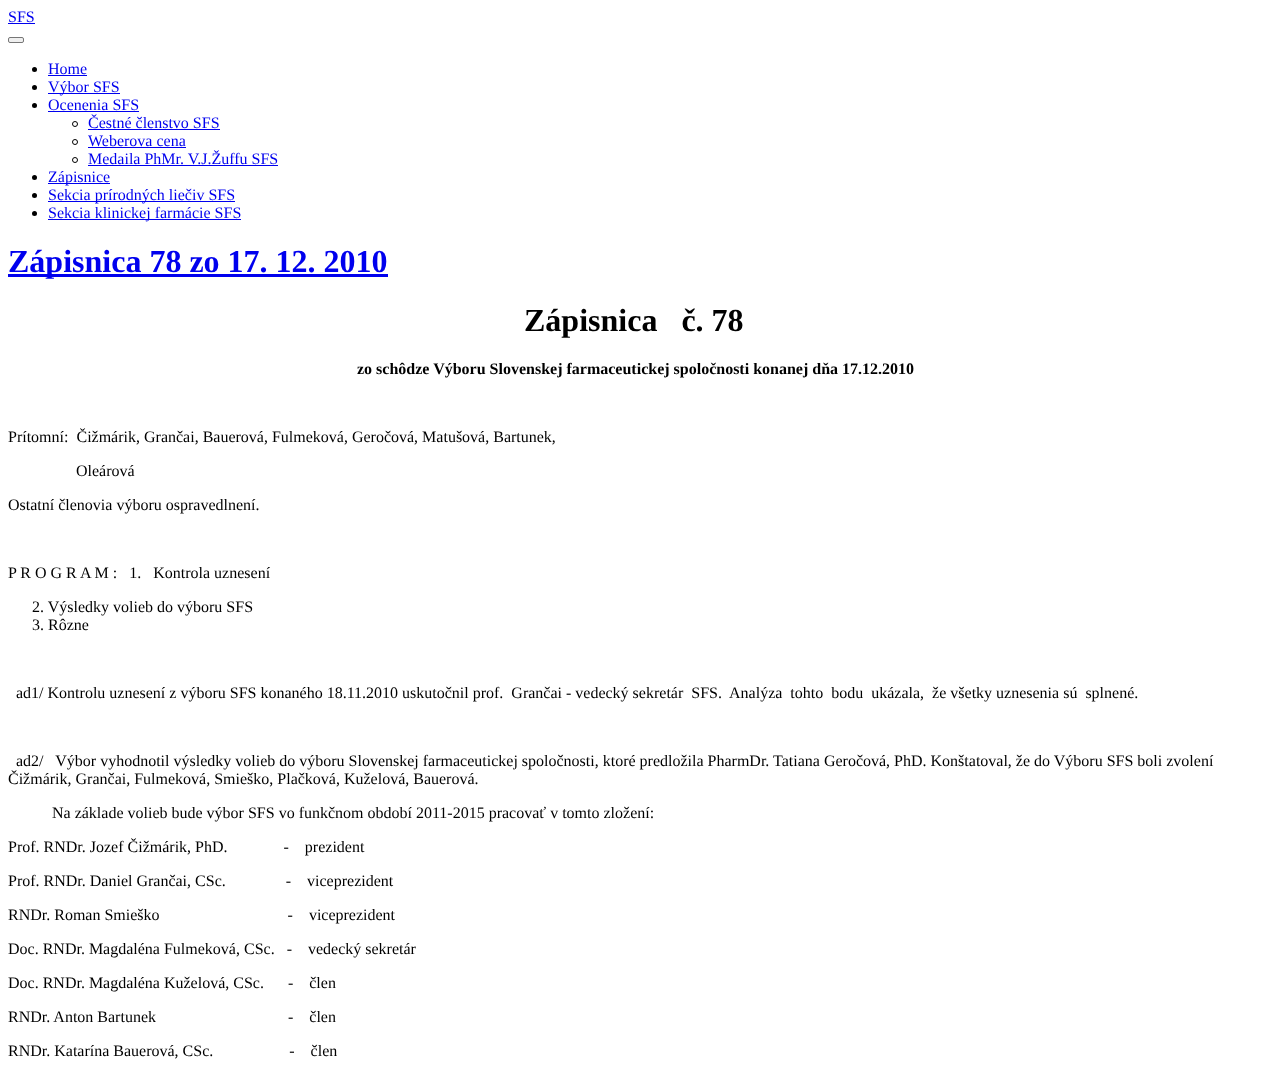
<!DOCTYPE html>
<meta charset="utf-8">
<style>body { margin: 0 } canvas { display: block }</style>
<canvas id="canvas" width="1267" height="1085"></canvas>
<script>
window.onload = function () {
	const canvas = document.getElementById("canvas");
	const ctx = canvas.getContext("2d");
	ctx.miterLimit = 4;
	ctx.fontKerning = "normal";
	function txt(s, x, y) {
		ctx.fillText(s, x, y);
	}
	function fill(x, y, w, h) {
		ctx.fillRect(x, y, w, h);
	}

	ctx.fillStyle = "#FFFFFF";
	fill(0, 0, 1267, 1085);
	ctx.fillStyle = "#0000EE";
	fill(8, 23, 27, 1);
	ctx.fillStyle = "#EFEFEF";
	ctx.beginPath();
	ctx.roundRect(8.5, 37.5, 15, 5, 1.5);
	ctx.fill();
	ctx.strokeStyle = "#767676";
	ctx.stroke();
	ctx.fillStyle = "#000000";
	ctx.beginPath();
	ctx.arc(34.5, 69.5, 2.5, 0, Math.PI * 2);
	ctx.fill();
	ctx.fillStyle = "#0000EE";
	fill(48, 75, 39, 1);
	ctx.fillStyle = "#000000";
	ctx.beginPath();
	ctx.arc(34.5, 87.5, 2.5, 0, Math.PI * 2);
	ctx.fill();
	ctx.fillStyle = "#0000EE";
	fill(48, 93, 72, 1);
	ctx.fillStyle = "#000000";
	ctx.beginPath();
	ctx.arc(34.5, 105.5, 2.5, 0, Math.PI * 2);
	ctx.fill();
	ctx.fillStyle = "#0000EE";
	fill(48, 111, 91, 1);
	ctx.beginPath();
	ctx.arc(75, 124, 2.5, 0, Math.PI * 2);
	ctx.strokeStyle = "#000000";
	ctx.stroke();
	fill(88, 129, 132, 1);
	ctx.beginPath();
	ctx.arc(75, 142, 2.5, 0, Math.PI * 2);
	ctx.stroke();
	fill(88, 147, 98, 1);
	ctx.beginPath();
	ctx.arc(75, 160, 2.5, 0, Math.PI * 2);
	ctx.stroke();
	fill(88, 165, 190, 1);
	ctx.fillStyle = "#000000";
	ctx.beginPath();
	ctx.arc(34.5, 177.5, 2.5, 0, Math.PI * 2);
	ctx.fill();
	ctx.fillStyle = "#0000EE";
	fill(48, 183, 62, 1);
	ctx.fillStyle = "#000000";
	ctx.beginPath();
	ctx.arc(34.5, 195.5, 2.5, 0, Math.PI * 2);
	ctx.fill();
	ctx.fillStyle = "#0000EE";
	fill(48, 201, 187, 1);
	ctx.fillStyle = "#000000";
	ctx.beginPath();
	ctx.arc(34.5, 213.5, 2.5, 0, Math.PI * 2);
	ctx.fill();
	ctx.fillStyle = "#0000EE";
	fill(48, 219, 193, 1);
	fill(8, 274, 380, 3);
	ctx.font = "16px Liberation Serif";
	txt("SFS", 8, 22);
	txt("Home", 48, 74);
	txt("Výbor SFS", 48, 92);
	txt("Ocenenia SFS", 48, 110);
	txt("Čestné členstvo SFS", 88, 128);
	txt("Weberova cena", 88, 146);
	txt("Medaila PhMr. V.J.Žuffu SFS", 88, 164);
	txt("Zápisnice", 48, 182);
	txt("Sekcia prírodných liečiv SFS", 48, 200);
	txt("Sekcia klinickej farmácie SFS", 48, 218);
	ctx.font = "bold 32px Liberation Serif";
	txt("Zápisnica 78 zo 17. 12. 2010", 8, 272);
	ctx.fillStyle = "#000000";
	txt("Zápisnica   č. 78", 524, 331);
	ctx.font = "bold 16px Liberation Serif";
	txt("zo schôdze Výboru Slovenskej farmaceutickej spoločnosti konanej dňa 17.12.2010", 357, 374);
	ctx.font = "16px Liberation Serif";
	txt("Prítomní:  Čižmárik, Grančai, Bauerová, Fulmeková, Geročová, Matušová, Bartunek,", 8, 442);
	txt("Oleárová", 76, 476);
	txt("Ostatní členovia výboru ospravedlnení.", 8, 510);
	txt("P R O G R A M :   1.   Kontrola uznesení", 8, 578);
	txt("2. Výsledky volieb do výboru SFS", 32, 612);
	txt("3. Rôzne", 32, 630);
	txt("ad1/ Kontrolu uznesení z výboru SFS konaného 18.11.2010 uskutočnil prof.  Grančai - vedecký sekretár  SFS.  Analýza  tohto  bodu  ukázala,  že všetky uznesenia sú  splnené.", 16, 698);
	txt("ad2/   Výbor vyhodnotil výsledky volieb do výboru Slovenskej farmaceutickej spoločnosti, ktoré predložila PharmDr. Tatiana Geročová, PhD. Konštatoval, že do Výboru SFS boli zvolení", 16, 766);
	txt("Čižmárik, Grančai, Fulmeková, Smieško, Plačková, Kuželová, Bauerová.", 8, 784);
	txt("Na základe volieb bude výbor SFS vo funkčnom období 2011-2015 pracovať v tomto zložení:", 52, 818);
	txt("Prof. RNDr. Jozef Čižmárik, PhD.              -    prezident", 8, 852);
	txt("Prof. RNDr. Daniel Grančai, CSc.               -    viceprezident", 8, 886);
	txt("RNDr. Roman Smieško                                -    viceprezident", 8, 920);
	txt("Doc. RNDr. Magdaléna Fulmeková, CSc.   -    vedecký sekretár", 8, 954);
	txt("Doc. RNDr. Magdaléna Kuželová, CSc.      -    člen", 8, 988);
	txt("RNDr. Anton Bartunek                                 -    člen", 8, 1022);
	txt("RNDr. Katarína Bauerová, CSc.                   -    člen", 8, 1056);
};
</script>
